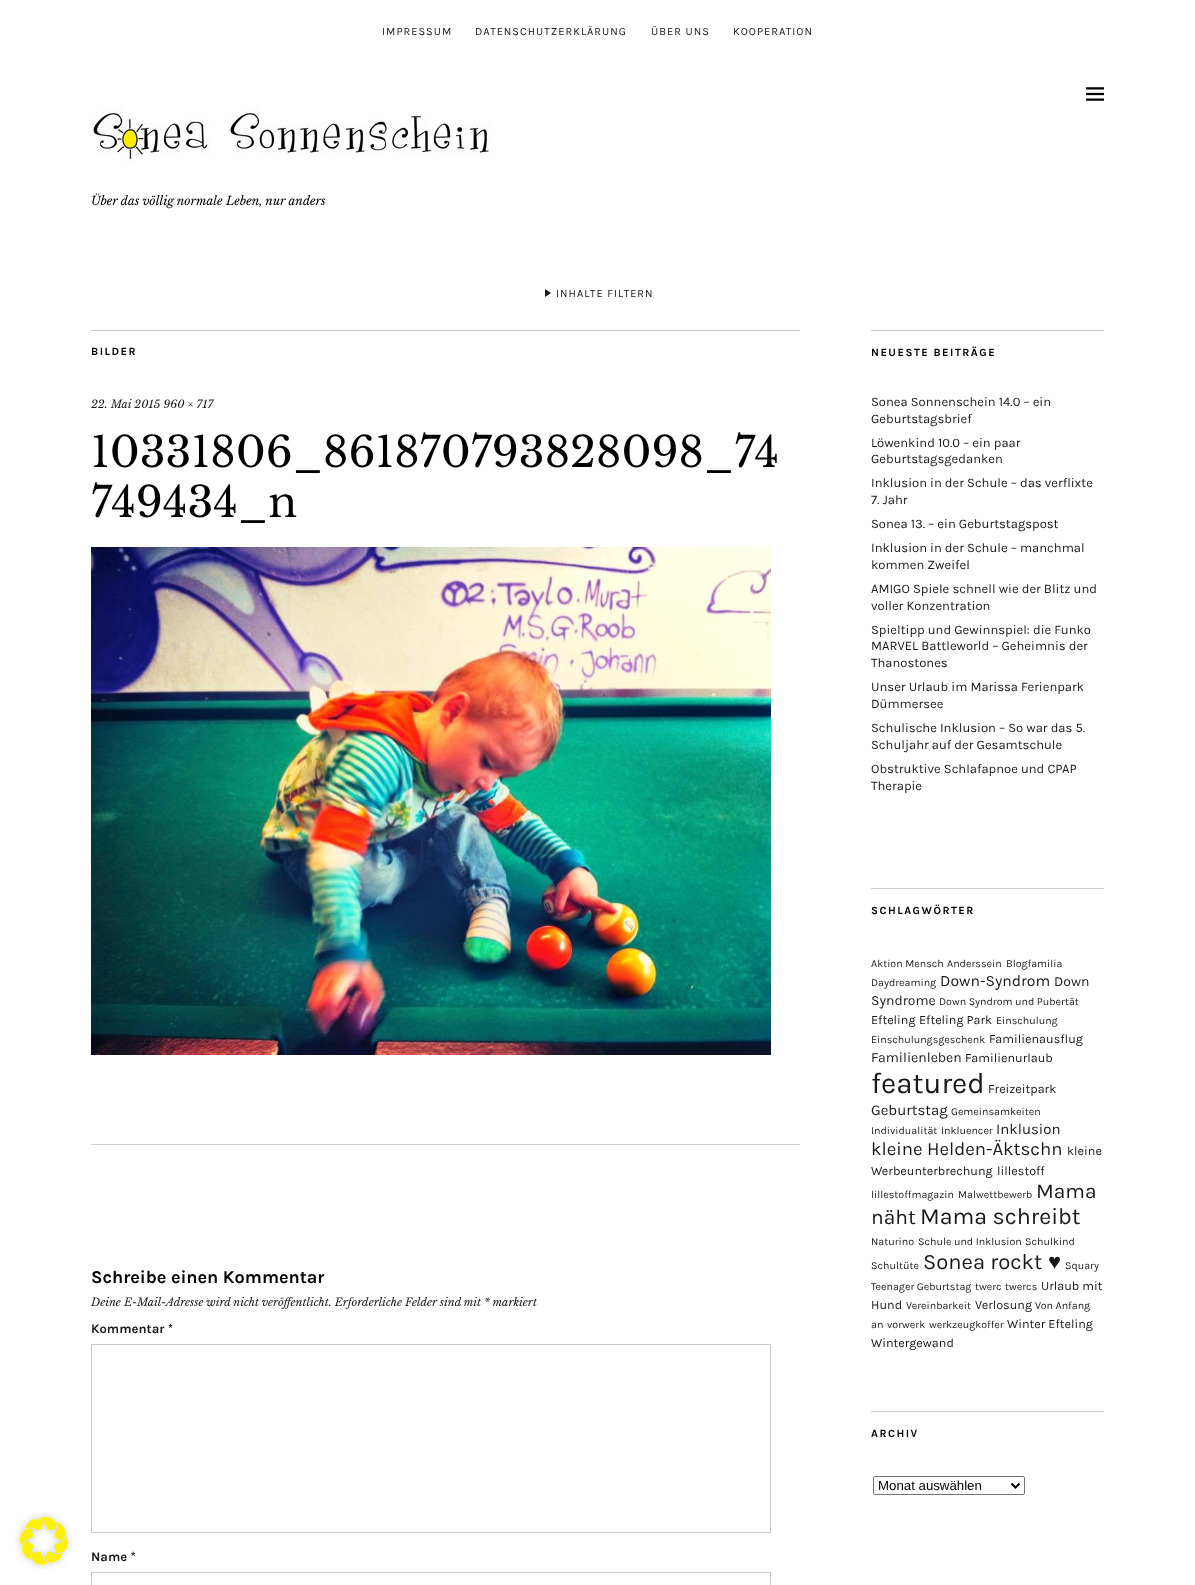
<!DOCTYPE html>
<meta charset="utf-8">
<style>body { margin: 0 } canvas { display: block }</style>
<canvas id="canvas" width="1195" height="1585"></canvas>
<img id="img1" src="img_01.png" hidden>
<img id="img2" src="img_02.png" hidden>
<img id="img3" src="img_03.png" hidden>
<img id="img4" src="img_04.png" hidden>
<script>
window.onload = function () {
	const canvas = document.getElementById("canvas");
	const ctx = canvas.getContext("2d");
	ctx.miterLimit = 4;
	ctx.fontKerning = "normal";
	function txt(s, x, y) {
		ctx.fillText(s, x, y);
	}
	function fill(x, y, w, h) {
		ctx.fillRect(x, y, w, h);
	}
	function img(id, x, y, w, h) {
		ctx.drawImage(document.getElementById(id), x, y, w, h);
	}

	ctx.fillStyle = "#FFFFFF";
	fill(0, 0, 1195, 1585);
	img("img1", 15, 1512, 57, 57);
	img("img2", 1086, 87, 18, 14);
	img("img3", 91, 107, 400, 56);
	ctx.fillStyle = "#191919";
	ctx.beginPath();
	ctx.moveTo(545, 289);
	ctx.lineTo(551, 293);
	ctx.lineTo(545, 297);
	ctx.closePath();
	ctx.fill();
	ctx.fillStyle = "#CCCCCC";
	fill(91, 330, 709, 1);
	fill(91, 1144, 709, 1);
	img("img4", 91, 547, 680, 508);
	ctx.strokeStyle = "#CACACA";
	ctx.strokeRect(91.5, 1344.5, 679, 188);
	ctx.strokeRect(91.5, 1572.5, 679, 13);
	fill(871, 330, 233, 1);
	fill(871, 888, 233, 1);
	fill(871, 1411, 233, 1);
	ctx.beginPath();
	ctx.roundRect(873.5, 1476.5, 151, 18, 1.5);
	ctx.strokeStyle = "#767676";
	ctx.stroke();
	ctx.beginPath();
	ctx.moveTo(1011.5, 1483.5);
	ctx.lineTo(1015.5, 1487.5);
	ctx.lineTo(1019.5, 1483.5);
	ctx.strokeStyle = "#000000";
	ctx.lineWidth = 2;
	ctx.stroke();
	ctx.letterSpacing = "1px";
	ctx.font = "11px Karla";
	ctx.fillStyle = "#191919";
	txt("IMPRESSUM", 382, 35);
	txt("DATENSCHUTZERKLÄRUNG", 475, 35);
	txt("ÜBER UNS", 651, 35);
	txt("KOOPERATION", 733, 35);
	ctx.letterSpacing = "0px";
	ctx.font = "italic 12px Libre Baskerville";
	ctx.fillStyle = "#000000";
	txt("Über das völlig normale Leben, nur anders", 91, 205);
	ctx.letterSpacing = "1px";
	ctx.font = "11px Karla";
	ctx.fillStyle = "#191919";
	txt("INHALTE FILTERN", 556, 297);
	ctx.letterSpacing = "1.5px";
	ctx.font = "bold 11px Karla";
	ctx.fillStyle = "#000000";
	txt("BILDER", 91, 355);
	ctx.letterSpacing = "0px";
	ctx.font = "italic 11px Libre Baskerville";
	ctx.fillStyle = "#191919";
	txt("22. Mai 2015 960 × 717", 91, 408);
	ctx.font = "42px Libre Baskerville";
	ctx.fillStyle = "#000000";
	txt("10331806_861870793828098_74", 91, 467);
	txt("749434_n", 91, 517);
	ctx.font = "bold 18px Karla";
	txt("Schreibe einen Kommentar", 91, 1283);
	ctx.font = "italic 11px Libre Baskerville";
	ctx.fillStyle = "#191919";
	txt("Deine E-Mail-Adresse wird nicht veröffentlicht. Erforderliche Felder sind mit * markiert", 91, 1306);
	ctx.font = "bold 13px Karla";
	txt("Kommentar *", 91, 1333);
	txt("Name *", 91, 1561);
	ctx.letterSpacing = "1.5px";
	ctx.font = "bold 11px Karla";
	ctx.fillStyle = "#000000";
	txt("NEUESTE BEITRÄGE", 871, 356);
	ctx.letterSpacing = "0px";
	ctx.font = "13px Karla";
	ctx.fillStyle = "#191919";
	txt("Sonea Sonnenschein 14.0 – ein", 871, 406);
	txt("Geburtstagsbrief", 871, 423);
	txt("Löwenkind 10.0 – ein paar", 871, 447);
	txt("Geburtstagsgedanken", 871, 463);
	txt("Inklusion in der Schule – das verflixte", 871, 487);
	txt("7. Jahr", 871, 504);
	txt("Sonea 13. – ein Geburtstagspost", 871, 528);
	txt("Inklusion in der Schule – manchmal", 871, 552);
	txt("kommen Zweifel", 871, 569);
	txt("AMIGO Spiele schnell wie der Blitz und", 871, 593);
	txt("voller Konzentration", 871, 610);
	txt("Spieltipp und Gewinnspiel: die Funko", 871, 634);
	txt("MARVEL Battleworld – Geheimnis der", 871, 650);
	txt("Thanostones", 871, 667);
	txt("Unser Urlaub im Marissa Ferienpark", 871, 691);
	txt("Dümmersee", 871, 708);
	txt("Schulische Inklusion – So war das 5.", 871, 732);
	txt("Schuljahr auf der Gesamtschule", 871, 749);
	txt("Obstruktive Schlafapnoe und CPAP", 871, 773);
	txt("Therapie", 871, 790);
	ctx.letterSpacing = "1.5px";
	ctx.font = "bold 11px Karla";
	ctx.fillStyle = "#000000";
	txt("SCHLAGWÖRTER", 871, 914);
	ctx.letterSpacing = "0px";
	ctx.font = "10.7px Karla";
	ctx.fillStyle = "#191919";
	txt("Aktion Mensch", 871, 967);
	txt("Anderssein", 947, 967);
	txt("Blogfamilia", 1006, 967);
	txt("Daydreaming", 871, 986);
	ctx.font = "15.75px Karla";
	txt("Down-Syndrom", 940, 986);
	ctx.font = "14px Karla";
	txt("Down", 1054, 986);
	txt("Syndrome", 871, 1005);
	ctx.font = "10.7px Karla";
	txt("Down Syndrom und Pubertät", 939, 1005);
	ctx.font = "12.6px Karla";
	txt("Efteling", 871, 1024);
	txt("Efteling Park", 919, 1024);
	ctx.font = "10.7px Karla";
	txt("Einschulung", 996, 1024);
	txt("Einschulungsgeschenk", 871, 1043);
	ctx.font = "12.6px Karla";
	txt("Familienausflug", 989, 1043);
	ctx.font = "14px Karla";
	txt("Familienleben", 871, 1062);
	ctx.font = "12.6px Karla";
	txt("Familienurlaub", 965, 1062);
	ctx.font = "29.5px Karla";
	txt("featured", 871, 1093);
	ctx.font = "12.6px Karla";
	txt("Freizeitpark", 988, 1093);
	ctx.font = "15px Karla";
	txt("Geburtstag", 871, 1115);
	ctx.font = "10.7px Karla";
	txt("Gemeinsamkeiten", 951, 1115);
	txt("Individualität", 871, 1134);
	txt("Inkluencer", 941, 1134);
	ctx.font = "15px Karla";
	txt("Inklusion", 996, 1134);
	ctx.font = "18.6px Karla";
	txt("kleine Helden-Äktschn", 871, 1155);
	ctx.font = "12.6px Karla";
	txt("kleine", 1067, 1155);
	txt("Werbeunterbrechung", 871, 1175);
	txt("lillestoff", 997, 1175);
	ctx.font = "10.7px Karla";
	txt("lillestoffmagazin", 871, 1198);
	txt("Malwettbewerb", 958, 1198);
	ctx.font = "21px Karla";
	txt("Mama", 1036, 1198);
	txt("näht", 871, 1224);
	ctx.font = "23.25px Karla";
	txt("Mama schreibt", 920, 1224);
	ctx.font = "10.7px Karla";
	txt("Naturino", 871, 1245);
	txt("Schule und Inklusion", 918, 1245);
	txt("Schulkind", 1025, 1245);
	txt("Schultüte", 871, 1269);
	ctx.font = "22px Karla";
	txt("Sonea rockt", 923, 1269);
	ctx.font = "22px Liberation Sans";
	txt("♥", 1048, 1269);
	ctx.font = "10.7px Karla";
	txt("Squary", 1065, 1269);
	txt("Teenager Geburtstag", 871, 1290);
	txt("twerc", 975, 1290);
	txt("twercs", 1005, 1290);
	ctx.font = "12.6px Karla";
	txt("Urlaub mit", 1041, 1290);
	txt("Hund", 871, 1309);
	ctx.font = "10.7px Karla";
	txt("Vereinbarkeit", 906, 1309);
	ctx.font = "12.6px Karla";
	txt("Verlosung", 975, 1309);
	ctx.font = "10.7px Karla";
	txt("Von Anfang", 1035, 1309);
	txt("an", 871, 1328);
	txt("vorwerk", 887, 1328);
	txt("werkzeugkoffer", 929, 1328);
	ctx.font = "12.6px Karla";
	txt("Winter Efteling", 1007, 1328);
	txt("Wintergewand", 871, 1347);
	ctx.letterSpacing = "1.5px";
	ctx.font = "bold 11px Karla";
	ctx.fillStyle = "#000000";
	txt("ARCHIV", 871, 1437);
	ctx.letterSpacing = "0px";
	ctx.font = "13.25px Liberation Sans";
	txt("Monat auswählen", 878, 1490);
};
</script>
